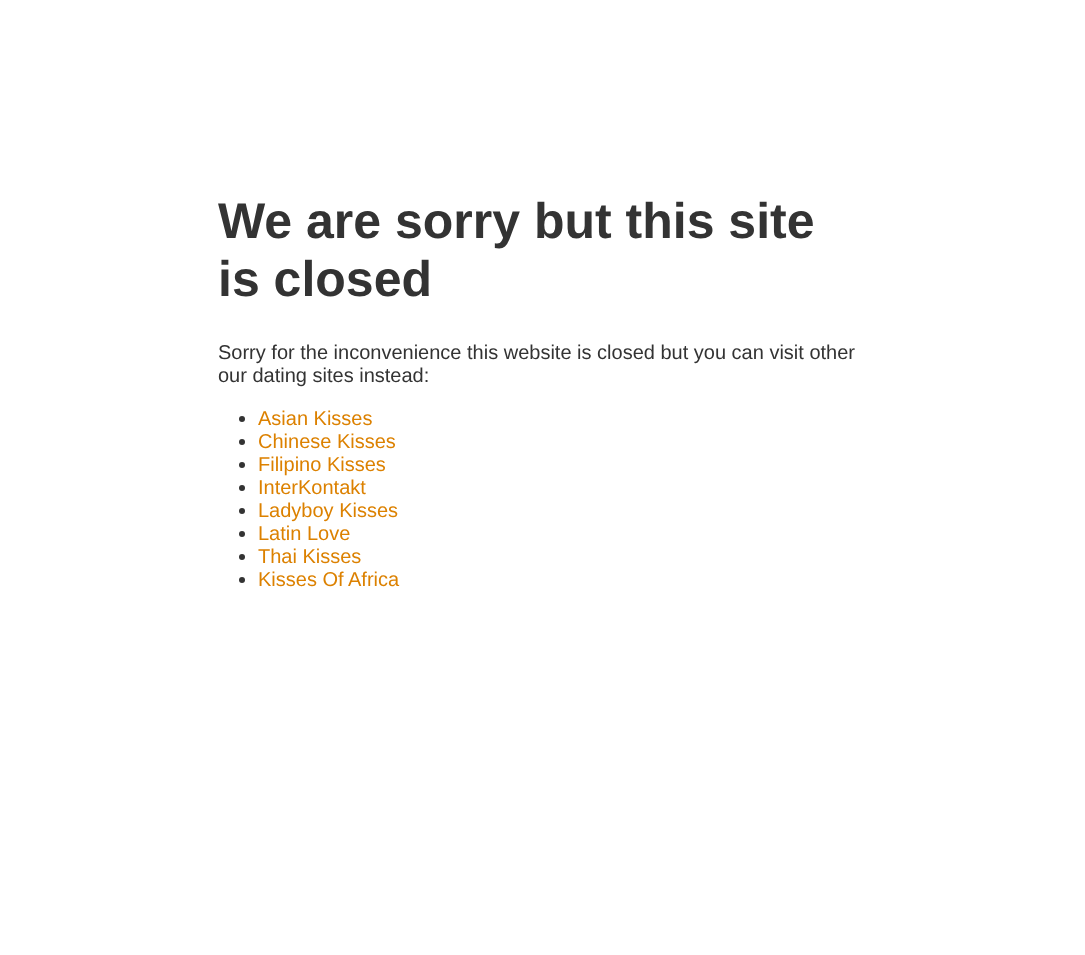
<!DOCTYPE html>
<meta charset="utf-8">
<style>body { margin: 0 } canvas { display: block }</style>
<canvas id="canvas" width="1085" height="955"></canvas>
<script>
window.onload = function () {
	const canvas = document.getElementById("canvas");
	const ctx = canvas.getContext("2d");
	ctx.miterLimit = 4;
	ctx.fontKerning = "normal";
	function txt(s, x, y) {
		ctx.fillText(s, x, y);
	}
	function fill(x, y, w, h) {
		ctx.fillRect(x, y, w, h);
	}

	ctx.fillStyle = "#FFFFFF";
	fill(0, 0, 1085, 955);
	ctx.fillStyle = "#333333";
	ctx.beginPath();
	ctx.arc(242, 419, 3, 0, Math.PI * 2);
	ctx.fill();
	ctx.beginPath();
	ctx.arc(242, 442, 3, 0, Math.PI * 2);
	ctx.fill();
	ctx.beginPath();
	ctx.arc(242, 465, 3, 0, Math.PI * 2);
	ctx.fill();
	ctx.beginPath();
	ctx.arc(242, 488, 3, 0, Math.PI * 2);
	ctx.fill();
	ctx.beginPath();
	ctx.arc(242, 511, 3, 0, Math.PI * 2);
	ctx.fill();
	ctx.beginPath();
	ctx.arc(242, 534, 3, 0, Math.PI * 2);
	ctx.fill();
	ctx.beginPath();
	ctx.arc(242, 557, 3, 0, Math.PI * 2);
	ctx.fill();
	ctx.beginPath();
	ctx.arc(242, 580, 3, 0, Math.PI * 2);
	ctx.fill();
	ctx.font = "bold 50px Liberation Sans";
	txt("We are sorry but this site", 218, 238);
	txt("is closed", 218, 296);
	ctx.font = "20px Liberation Sans";
	txt("Sorry for the inconvenience this website is closed but you can visit other", 218, 359);
	txt("our dating sites instead:", 218, 382);
	ctx.fillStyle = "#DC8100";
	txt("Asian Kisses", 258, 425);
	txt("Chinese Kisses", 258, 448);
	txt("Filipino Kisses", 258, 471);
	txt("InterKontakt", 258, 494);
	txt("Ladyboy Kisses", 258, 517);
	txt("Latin Love", 258, 540);
	txt("Thai Kisses", 258, 563);
	txt("Kisses Of Africa", 258, 586);
};
</script>
